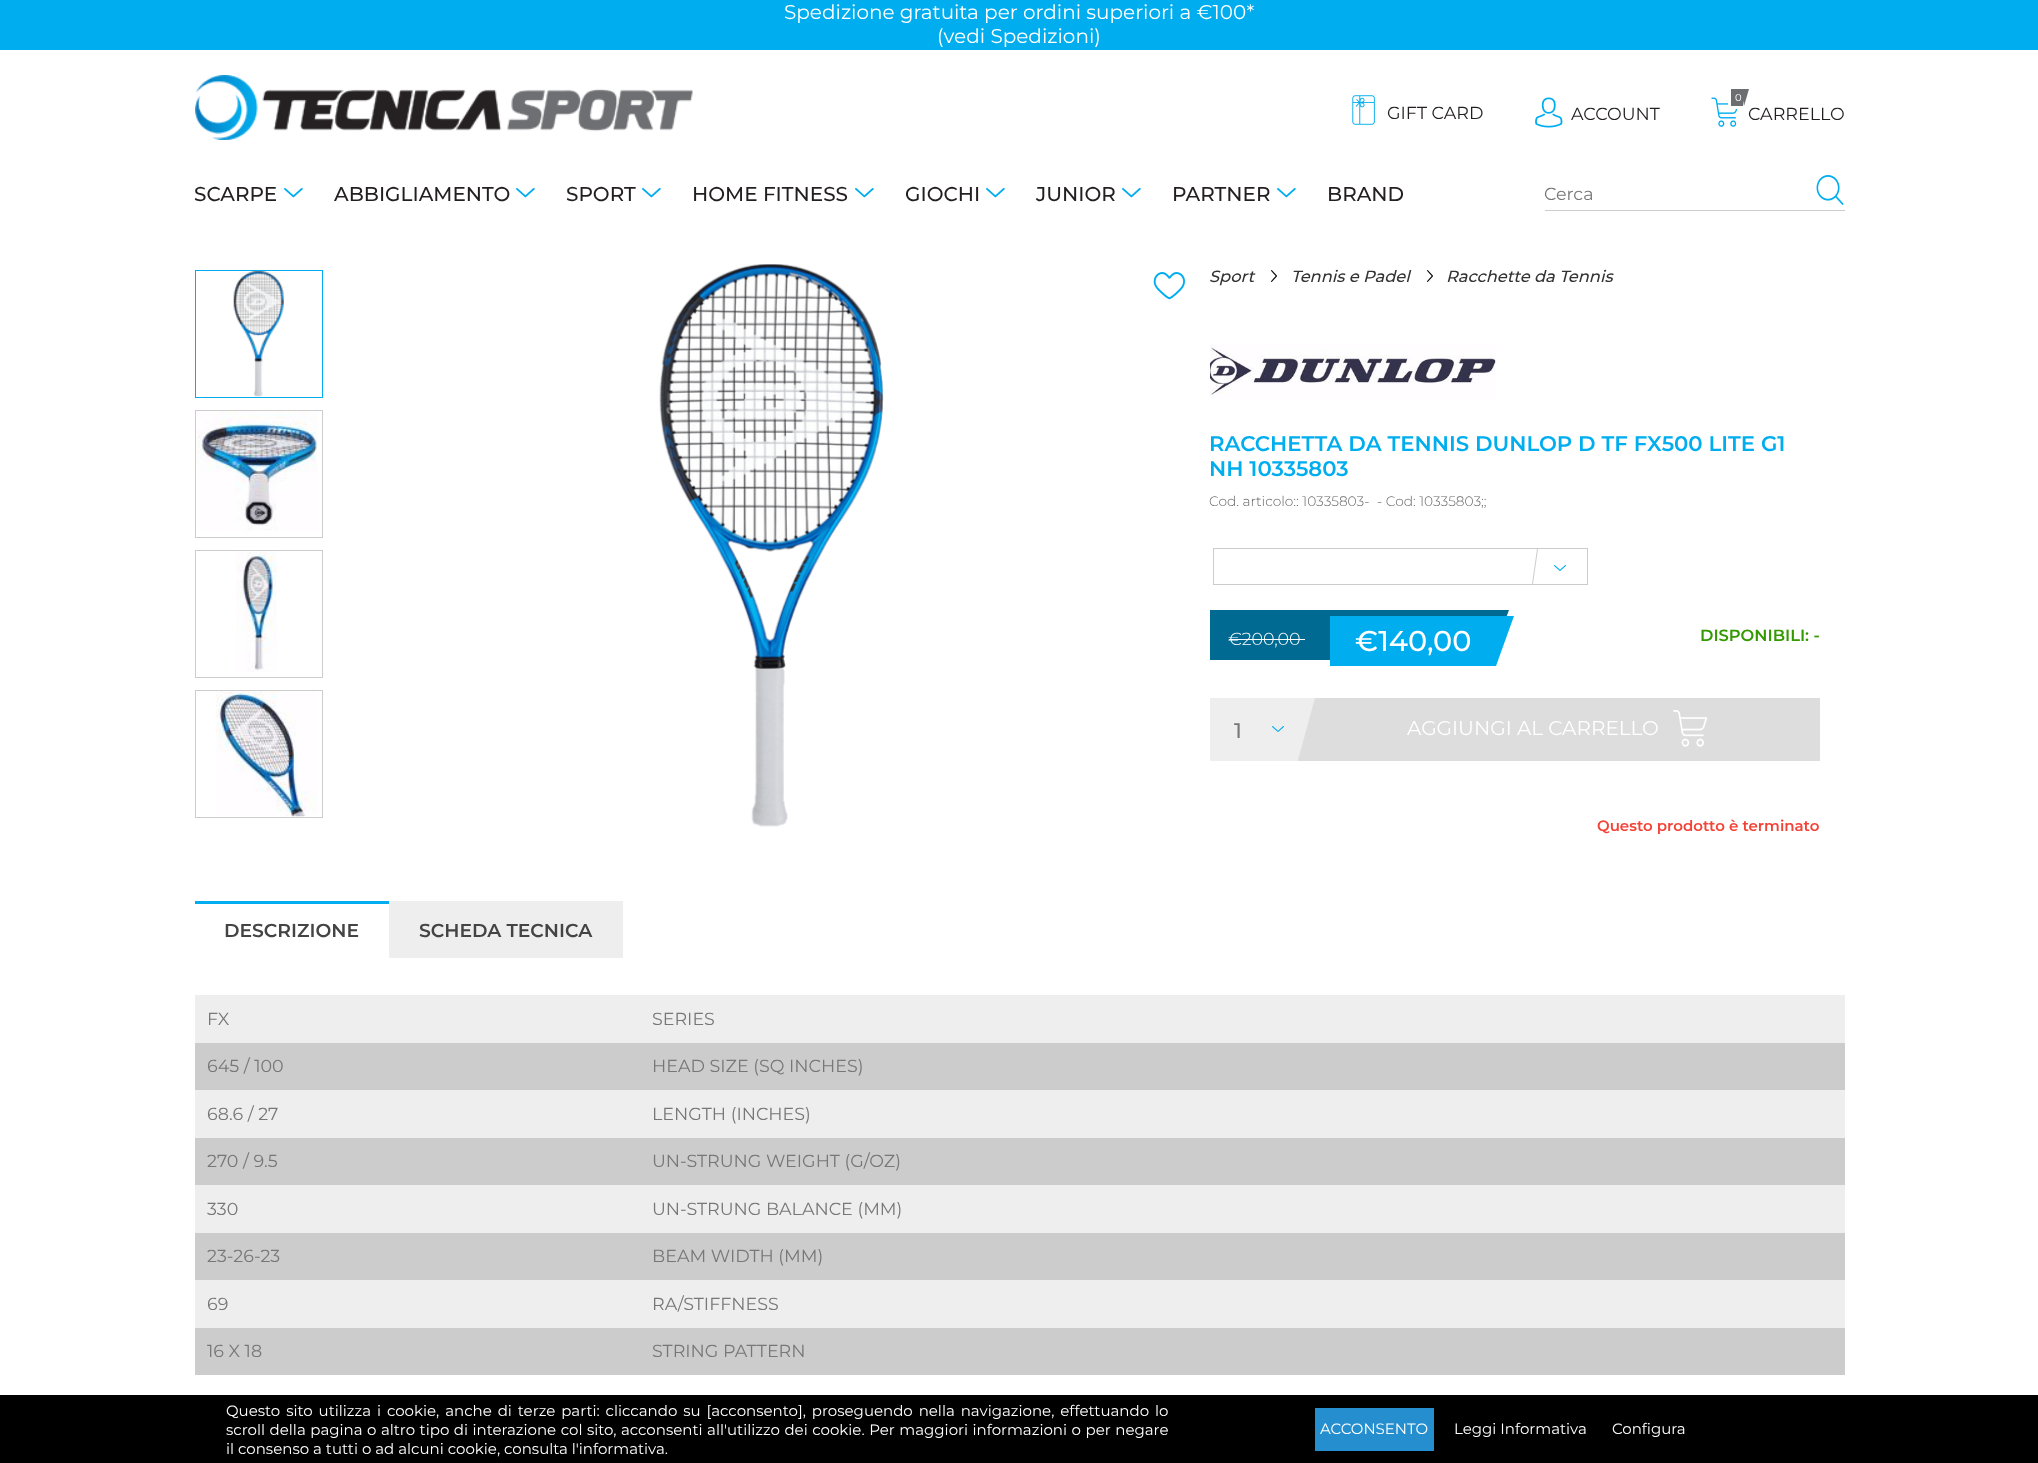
<!DOCTYPE html>
<meta charset="utf-8">
<style>body { margin: 0 } canvas { display: block }</style>
<canvas id="canvas" width="2038" height="1463"></canvas>
<img id="img1" src="img_01.png" hidden>
<img id="img2" src="img_02.png" hidden>
<img id="img3" src="img_03.png" hidden>
<img id="img4" src="img_04.png" hidden>
<img id="img5" src="img_05.png" hidden>
<img id="img6" src="img_06.png" hidden>
<img id="img7" src="img_07.png" hidden>
<img id="img8" src="img_08.png" hidden>
<img id="img9" src="img_09.png" hidden>
<img id="img10" src="img_10.png" hidden>
<img id="img11" src="img_11.png" hidden>
<img id="img12" src="img_12.png" hidden>
<img id="img13" src="img_13.png" hidden>
<script>
window.onload = function () {
	const canvas = document.getElementById("canvas");
	const ctx = canvas.getContext("2d");
	ctx.miterLimit = 4;
	ctx.fontKerning = "normal";
	function txt(s, x, y) {
		ctx.fillText(s, x, y);
	}
	function fill(x, y, w, h) {
		ctx.fillRect(x, y, w, h);
	}
	function img(id, x, y, w, h) {
		ctx.drawImage(document.getElementById(id), x, y, w, h);
	}

	ctx.fillStyle = "#FFFFFF";
	fill(0, 0, 2038, 1463);
	ctx.fillStyle = "#00ADEE";
	fill(0, 0, 2038, 50);
	img("img1", 195, 75, 498, 65);
	img("img2", 1352, 95, 23, 30);
	img("img3", 1535, 97, 28, 31);
	img("img4", 1711, 97, 27, 30);
	ctx.fillStyle = "#6D6E71";
	ctx.beginPath();
	ctx.rect(1729.5, 87.5, 15, 20);
	ctx.fill();
	ctx.strokeStyle = "#FFFFFF";
	ctx.lineWidth = 3;
	ctx.stroke();
	ctx.beginPath();
	ctx.moveTo(1741, 89);
	ctx.lineTo(1749, 89);
	ctx.lineTo(1744, 106);
	ctx.closePath();
	ctx.fill();
	ctx.fillStyle = "#CCCCCC";
	fill(1545, 210, 300, 1);
	img("img5", 1816, 175, 28, 30);
	ctx.strokeStyle = "#00ADEE";
	ctx.lineWidth = 1;
	ctx.strokeRect(195.5, 270.5, 127, 127);
	img("img6", 233, 271, 51, 126);
	ctx.strokeStyle = "#CCCCCC";
	ctx.strokeRect(195.5, 410.5, 127, 127);
	img("img7", 196, 411, 122, 120);
	ctx.strokeRect(195.5, 550.5, 127, 127);
	img("img8", 236, 551, 41, 121);
	ctx.strokeRect(195.5, 690.5, 127, 127);
	img("img9", 216, 691, 101, 126);
	img("img10", 659, 264, 225, 563);
	img("img11", 1153, 272, 32, 28);
	img("img12", 1210, 344, 286, 55);
	ctx.strokeRect(1213.5, 548.5, 374, 36);
	ctx.beginPath();
	ctx.moveTo(1537, 549);
	ctx.lineTo(1538, 549);
	ctx.lineTo(1533, 584);
	ctx.lineTo(1532, 584);
	ctx.closePath();
	ctx.fill();
	ctx.fillStyle = "#006A93";
	fill(1210, 610, 280, 50);
	ctx.fillStyle = "#FFFFFF";
	fill(1229, 639, 76, 1);
	ctx.fillStyle = "#006A93";
	ctx.beginPath();
	ctx.moveTo(1490, 610);
	ctx.lineTo(1509, 610);
	ctx.lineTo(1490, 660);
	ctx.closePath();
	ctx.fill();
	ctx.fillStyle = "#00ADEE";
	fill(1330, 616, 166, 50);
	ctx.beginPath();
	ctx.moveTo(1496, 616);
	ctx.lineTo(1514, 616);
	ctx.lineTo(1496, 666);
	ctx.closePath();
	ctx.fill();
	ctx.fillStyle = "#DDDDDD";
	fill(1298, 698, 522, 63);
	ctx.fillStyle = "#EEEEEE";
	fill(1210, 698, 88, 63);
	ctx.beginPath();
	ctx.moveTo(1298, 698);
	ctx.lineTo(1315, 698);
	ctx.lineTo(1298, 760);
	ctx.closePath();
	ctx.fill();
	img("img13", 1673, 710, 34, 37);
	ctx.fillStyle = "#00ADEE";
	fill(195, 901, 194, 3);
	ctx.fillStyle = "#EEEEEE";
	fill(389, 901, 234, 57);
	fill(195, 995, 1650, 48);
	ctx.fillStyle = "#CCCCCC";
	fill(195, 1043, 1650, 47);
	ctx.fillStyle = "#EEEEEE";
	fill(195, 1090, 1650, 48);
	ctx.fillStyle = "#CCCCCC";
	fill(195, 1138, 1650, 47);
	ctx.fillStyle = "#EEEEEE";
	fill(195, 1185, 1650, 48);
	ctx.fillStyle = "#CCCCCC";
	fill(195, 1233, 1650, 47);
	ctx.fillStyle = "#EEEEEE";
	fill(195, 1280, 1650, 48);
	ctx.fillStyle = "#CCCCCC";
	fill(195, 1328, 1650, 47);
	ctx.fillStyle = "#000000";
	fill(0, 1395, 2038, 68);
	ctx.fillStyle = "#248ECE";
	fill(1315, 1408, 119, 43);
	ctx.font = "20px Montserrat";
	ctx.fillStyle = "#FFFFFF";
	txt("Spedizione gratuita per ordini superiori a €100*", 784, 19);
	txt("(vedi Spedizioni)", 937, 43);
	ctx.font = "17.5px Montserrat";
	ctx.fillStyle = "#231F20";
	txt("GIFT CARD", 1387, 119);
	txt("ACCOUNT", 1571, 120);
	ctx.font = "10px Montserrat";
	ctx.fillStyle = "#FFFFFF";
	txt("0", 1735, 101);
	ctx.font = "17.5px Montserrat";
	ctx.fillStyle = "#231F20";
	txt("CARRELLO", 1748, 120);
	ctx.font = "500 20px Montserrat";
	txt("SCARPE", 194, 201);
	ctx.font = "18.75px 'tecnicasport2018'";
	ctx.fillStyle = "#00ADEE";
	txt("\\", 284, 202);
	ctx.font = "500 20px Montserrat";
	ctx.fillStyle = "#231F20";
	txt("ABBIGLIAMENTO", 334, 201);
	ctx.font = "18.75px 'tecnicasport2018'";
	ctx.fillStyle = "#00ADEE";
	txt("\\", 516, 202);
	ctx.font = "500 20px Montserrat";
	ctx.fillStyle = "#231F20";
	txt("SPORT", 566, 201);
	ctx.font = "18.75px 'tecnicasport2018'";
	ctx.fillStyle = "#00ADEE";
	txt("\\", 642, 202);
	ctx.font = "500 20px Montserrat";
	ctx.fillStyle = "#231F20";
	txt("HOME FITNESS", 692, 201);
	ctx.font = "18.75px 'tecnicasport2018'";
	ctx.fillStyle = "#00ADEE";
	txt("\\", 855, 202);
	ctx.font = "500 20px Montserrat";
	ctx.fillStyle = "#231F20";
	txt("GIOCHI", 905, 201);
	ctx.font = "18.75px 'tecnicasport2018'";
	ctx.fillStyle = "#00ADEE";
	txt("\\", 986, 202);
	ctx.font = "500 20px Montserrat";
	ctx.fillStyle = "#231F20";
	txt("JUNIOR", 1036, 201);
	ctx.font = "18.75px 'tecnicasport2018'";
	ctx.fillStyle = "#00ADEE";
	txt("\\", 1122, 202);
	ctx.font = "500 20px Montserrat";
	ctx.fillStyle = "#231F20";
	txt("PARTNER", 1172, 201);
	ctx.font = "18.75px 'tecnicasport2018'";
	ctx.fillStyle = "#00ADEE";
	txt("\\", 1277, 202);
	ctx.font = "500 20px Montserrat";
	ctx.fillStyle = "#231F20";
	txt("BRAND", 1327, 201);
	ctx.font = "17.5px Montserrat";
	ctx.fillStyle = "#777777";
	txt("Cerca", 1544, 200);
	ctx.font = "italic 500 16.25px Montserrat";
	ctx.fillStyle = "#333333";
	txt("Sport", 1209, 282);
	ctx.font = "12px 'tecnicasport2018'";
	ctx.fillStyle = "#000000";
	txt(">", 1268, 282);
	ctx.font = "italic 500 16.25px Montserrat";
	ctx.fillStyle = "#333333";
	txt("Tennis e Padel", 1291, 282);
	ctx.font = "12px 'tecnicasport2018'";
	ctx.fillStyle = "#000000";
	txt(">", 1424, 282);
	ctx.font = "italic 500 16.25px Montserrat";
	ctx.fillStyle = "#333333";
	txt("Racchette da Tennis", 1446, 282);
	ctx.font = "600 21.25px Montserrat";
	ctx.fillStyle = "#00ADEE";
	txt("RACCHETTA DA TENNIS DUNLOP D TF FX500 LITE G1", 1209, 451);
	txt("NH 10335803", 1209, 476);
	ctx.font = "300 13.75px Montserrat";
	ctx.fillStyle = "#666666";
	txt("Cod. articolo:: 10335803-", 1209, 506);
	txt("- Cod: 10335803;;", 1377, 506);
	ctx.font = "12px 'tecnicasport2018'";
	ctx.fillStyle = "#00ADEE";
	txt("\\", 1554, 574);
	ctx.font = "300 17.5px Montserrat";
	ctx.fillStyle = "#FFFFFF";
	txt("€200,00", 1228, 645);
	ctx.font = "500 28.75px Montserrat";
	txt("€140,00", 1355, 651);
	ctx.font = "600 16.25px Montserrat";
	ctx.fillStyle = "#339900";
	txt("DISPONIBILI: -", 1700, 641);
	ctx.font = "500 21.25px Montserrat";
	ctx.fillStyle = "#777777";
	txt("1", 1234, 738);
	ctx.font = "12px 'tecnicasport2018'";
	ctx.fillStyle = "#00ADEE";
	txt("\\", 1272, 735);
	ctx.font = "20px Montserrat";
	ctx.fillStyle = "#FFFFFF";
	txt("AGGIUNGI AL CARRELLO", 1407, 735);
	ctx.font = "600 15px Montserrat";
	ctx.fillStyle = "#F44336";
	txt("Questo prodotto è terminato", 1597, 831);
	ctx.font = "600 18.75px Montserrat";
	ctx.fillStyle = "#444444";
	txt("DESCRIZIONE", 224, 937);
	txt("SCHEDA TECNICA", 419, 937);
	ctx.font = "17.5px Montserrat";
	ctx.fillStyle = "#777777";
	txt("FX", 207, 1025);
	txt("SERIES", 652, 1025);
	txt("645 / 100", 207, 1072);
	txt("HEAD SIZE (SQ INCHES)", 652, 1072);
	txt("68.6 / 27", 207, 1120);
	txt("LENGTH (INCHES)", 652, 1120);
	txt("270 / 9.5", 207, 1167);
	txt("UN-STRUNG WEIGHT (G/OZ)", 652, 1167);
	txt("330", 207, 1215);
	txt("UN-STRUNG BALANCE (MM)", 652, 1215);
	txt("23-26-23", 207, 1262);
	txt("BEAM WIDTH (MM)", 652, 1262);
	txt("69", 207, 1310);
	txt("RA/STIFFNESS", 652, 1310);
	txt("16 X 18", 207, 1357);
	txt("STRING PATTERN", 652, 1357);
	ctx.wordSpacing = "2px";
	ctx.font = "15px Montserrat";
	ctx.fillStyle = "#FFFFFF";
	txt("Questo sito utilizza i cookie, anche di terze parti: cliccando su [acconsento], proseguendo nella navigazione, effettuando lo", 226, 1416);
	ctx.wordSpacing = "0.6px";
	txt("scroll della pagina o altro tipo di interazione col sito, acconsenti all'utilizzo dei cookie. Per maggiori informazioni o per negare", 226, 1435);
	ctx.wordSpacing = "0px";
	txt("il consenso a tutti o ad alcuni cookie, consulta l'informativa.", 226, 1454);
	txt("ACCONSENTO", 1320, 1434);
	txt("Leggi Informativa", 1454, 1434);
	txt("Configura", 1612, 1434);
};
</script>
